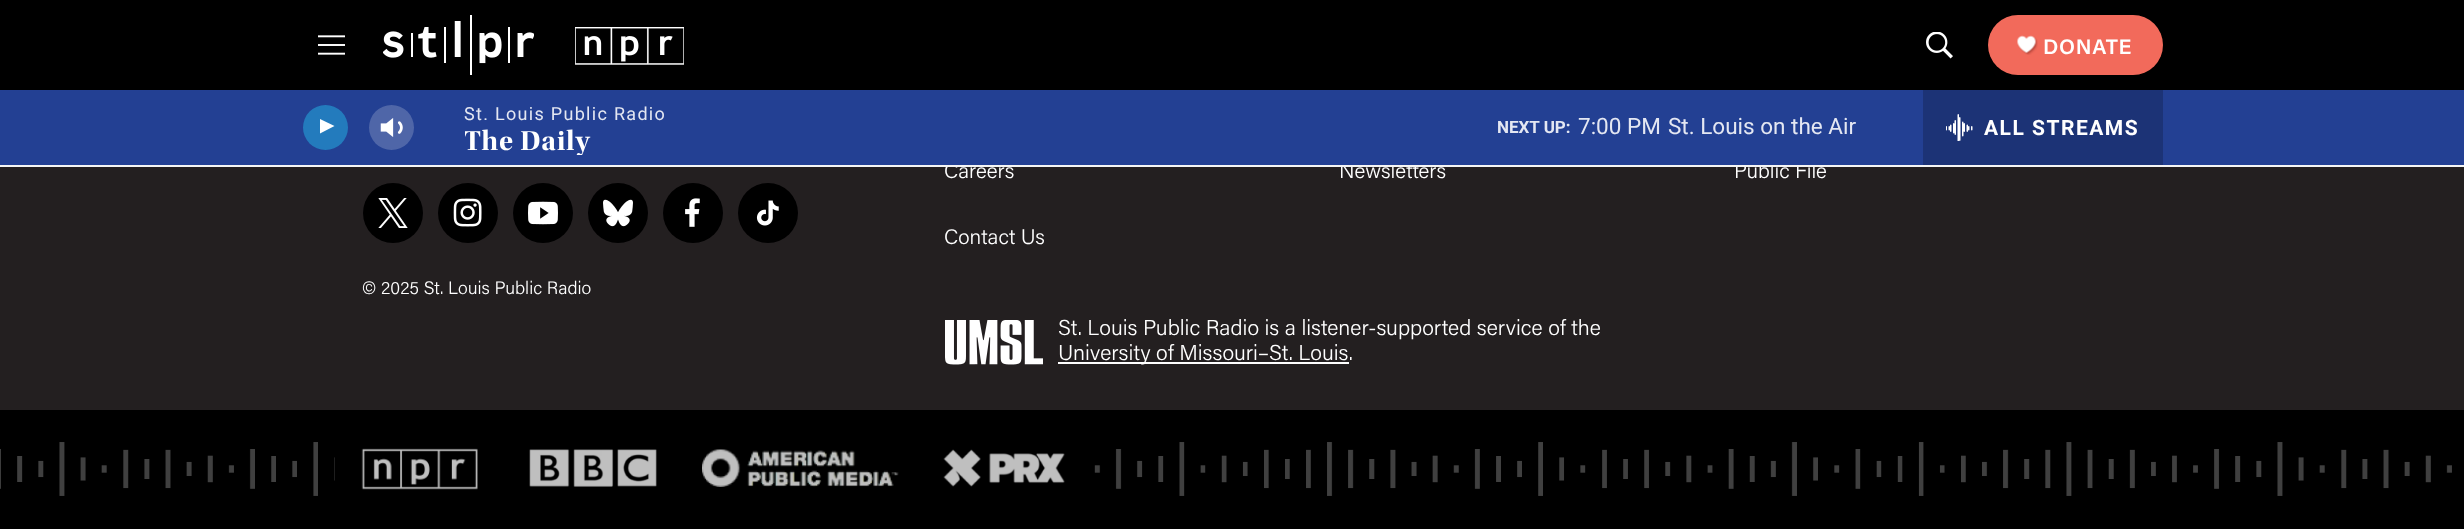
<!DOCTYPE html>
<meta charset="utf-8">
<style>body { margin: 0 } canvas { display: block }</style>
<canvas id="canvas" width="2464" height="529"></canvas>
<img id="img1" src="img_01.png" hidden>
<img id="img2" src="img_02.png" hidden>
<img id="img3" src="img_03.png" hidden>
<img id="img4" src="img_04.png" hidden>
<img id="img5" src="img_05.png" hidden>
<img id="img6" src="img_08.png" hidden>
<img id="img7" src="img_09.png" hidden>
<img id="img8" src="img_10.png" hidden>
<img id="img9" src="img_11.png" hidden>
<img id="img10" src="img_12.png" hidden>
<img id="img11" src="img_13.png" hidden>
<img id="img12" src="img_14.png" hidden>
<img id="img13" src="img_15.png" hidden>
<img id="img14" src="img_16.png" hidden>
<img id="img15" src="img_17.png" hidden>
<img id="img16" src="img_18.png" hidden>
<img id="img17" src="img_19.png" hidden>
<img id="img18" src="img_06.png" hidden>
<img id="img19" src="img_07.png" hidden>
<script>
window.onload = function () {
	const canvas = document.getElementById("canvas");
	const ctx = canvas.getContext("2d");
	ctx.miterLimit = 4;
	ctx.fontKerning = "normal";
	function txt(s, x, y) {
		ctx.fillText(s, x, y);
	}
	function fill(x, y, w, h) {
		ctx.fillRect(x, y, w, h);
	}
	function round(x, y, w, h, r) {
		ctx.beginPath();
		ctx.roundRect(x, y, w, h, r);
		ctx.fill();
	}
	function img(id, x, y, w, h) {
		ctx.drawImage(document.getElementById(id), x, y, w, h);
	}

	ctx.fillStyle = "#231F20";
	fill(0, 0, 2464, 529);
	ctx.fillStyle = "#000000";
	fill(0, 0, 2464, 90);
	img("img1", 318, 35, 27, 20);
	img("img2", 383, 15, 151, 60);
	img("img3", 575, 27, 109, 38);
	img("img4", 1926, 32, 27, 27);
	ctx.fillStyle = "#F26A5B";
	round(1988, 15, 175, 60, 30);
	img("img5", 2017, 35, 21, 20);
	ctx.fillStyle = "#000000";
	ctx.beginPath();
	ctx.arc(393, 213, 30, 0, Math.PI * 2);
	ctx.fill();
	img("img6", 378, 198, 30, 30);
	ctx.beginPath();
	ctx.arc(468, 213, 30, 0, Math.PI * 2);
	ctx.fill();
	img("img7", 453, 198, 29, 29);
	ctx.beginPath();
	ctx.arc(543, 213, 30, 0, Math.PI * 2);
	ctx.fill();
	img("img8", 528, 201, 30, 24);
	ctx.beginPath();
	ctx.arc(618, 213, 30, 0, Math.PI * 2);
	ctx.fill();
	img("img9", 603, 199, 30, 28);
	ctx.beginPath();
	ctx.arc(693, 213, 30, 0, Math.PI * 2);
	ctx.fill();
	img("img10", 685, 198, 15, 29);
	ctx.beginPath();
	ctx.arc(768, 213, 30, 0, Math.PI * 2);
	ctx.fill();
	img("img11", 756, 200, 23, 26);
	img("img12", 945, 320, 98, 45);
	ctx.fillStyle = "#FFFFFF";
	fill(1058, 362, 291, 2);
	ctx.fillStyle = "#000000";
	fill(0, 410, 2464, 119);
	img("img13", 0, 442, 2452, 54);
	fill(335, 442, 343, 54);
	img("img14", 361, 448, 117, 42);
	fill(693, 442, 217, 54);
	img("img15", 702, 449, 197, 38);
	fill(926, 442, 153, 54);
	img("img16", 943, 449, 122, 38);
	img("img17", 529, 449, 128, 38);
	ctx.letterSpacing = "0.75px";
	ctx.font = "600 21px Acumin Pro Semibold";
	ctx.fillStyle = "#FFFFFF";
	txt("DONATE", 2043, 54);
	ctx.letterSpacing = "0px";
	ctx.font = "300 18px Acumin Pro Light";
	txt("© 2025 St. Louis Public Radio", 362, 294);
	ctx.font = "300 21px Acumin Pro Light";
	txt("Careers", 944, 178);
	txt("Newsletters", 1339, 178);
	txt("Public File", 1734, 178);
	ctx.fillStyle = "#234093";
	fill(0, 90, 2464, 75);
	ctx.font = "22.5px Roboto";
	ctx.fillStyle = "#E4E7F2";
	txt("St. Louis on the Air", 1668, 134);
	txt("7:00 PM", 1578, 134);
	ctx.font = "bold 17px Roboto";
	txt("NEXT UP:", 1497, 133);
	ctx.letterSpacing = "1.3px";
	ctx.font = "18px Roboto";
	txt("St. Louis Public Radio", 464, 120);
	img("img18", 380, 118, 23, 19);
	ctx.fillStyle = "rgba(255, 255, 255, 0.2)";
	ctx.beginPath();
	ctx.arc(391.5, 127.5, 22.5, 0, Math.PI * 2);
	ctx.fill();
	ctx.fillStyle = "#237BBD";
	ctx.beginPath();
	ctx.arc(325.5, 127.5, 22.5, 0, Math.PI * 2);
	ctx.fill();
	ctx.fillStyle = "#FFFFFF";
	ctx.beginPath();
	ctx.moveTo(320, 119);
	ctx.lineTo(334.5, 126);
	ctx.lineTo(320, 133.5);
	ctx.closePath();
	ctx.fill();
	ctx.fillStyle = "#1C3376";
	fill(1923, 90, 240, 75);
	img("img19", 1946, 114, 27, 27);
	ctx.save();
	ctx.beginPath();
	ctx.rect(465, 128, 201, 27);
	ctx.clip();
	ctx.letterSpacing = "1px";
	ctx.font = "bold 28.5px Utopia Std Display";
	ctx.fillStyle = "#FFFFFF";
	txt("The Daily", 464, 150);
	ctx.restore();
	ctx.letterSpacing = "1.5px";
	ctx.font = "bold 21px Roboto";
	ctx.fillStyle = "#FFFFFF";
	txt("ALL STREAMS", 1984, 135);
	ctx.fillStyle = "#F5F5F5";
	fill(0, 165, 2464, 2);
	ctx.letterSpacing = "0px";
	ctx.font = "300 21px Acumin Pro Light";
	ctx.fillStyle = "#FFFFFF";
	txt("Contact Us", 944, 244);
	ctx.font = "300 21.6px Acumin Pro Light";
	txt("St. Louis Public Radio is a listener-supported service of the", 1058, 335);
	txt("University of Missouri–St. Louis.", 1058, 360);
};
</script>
